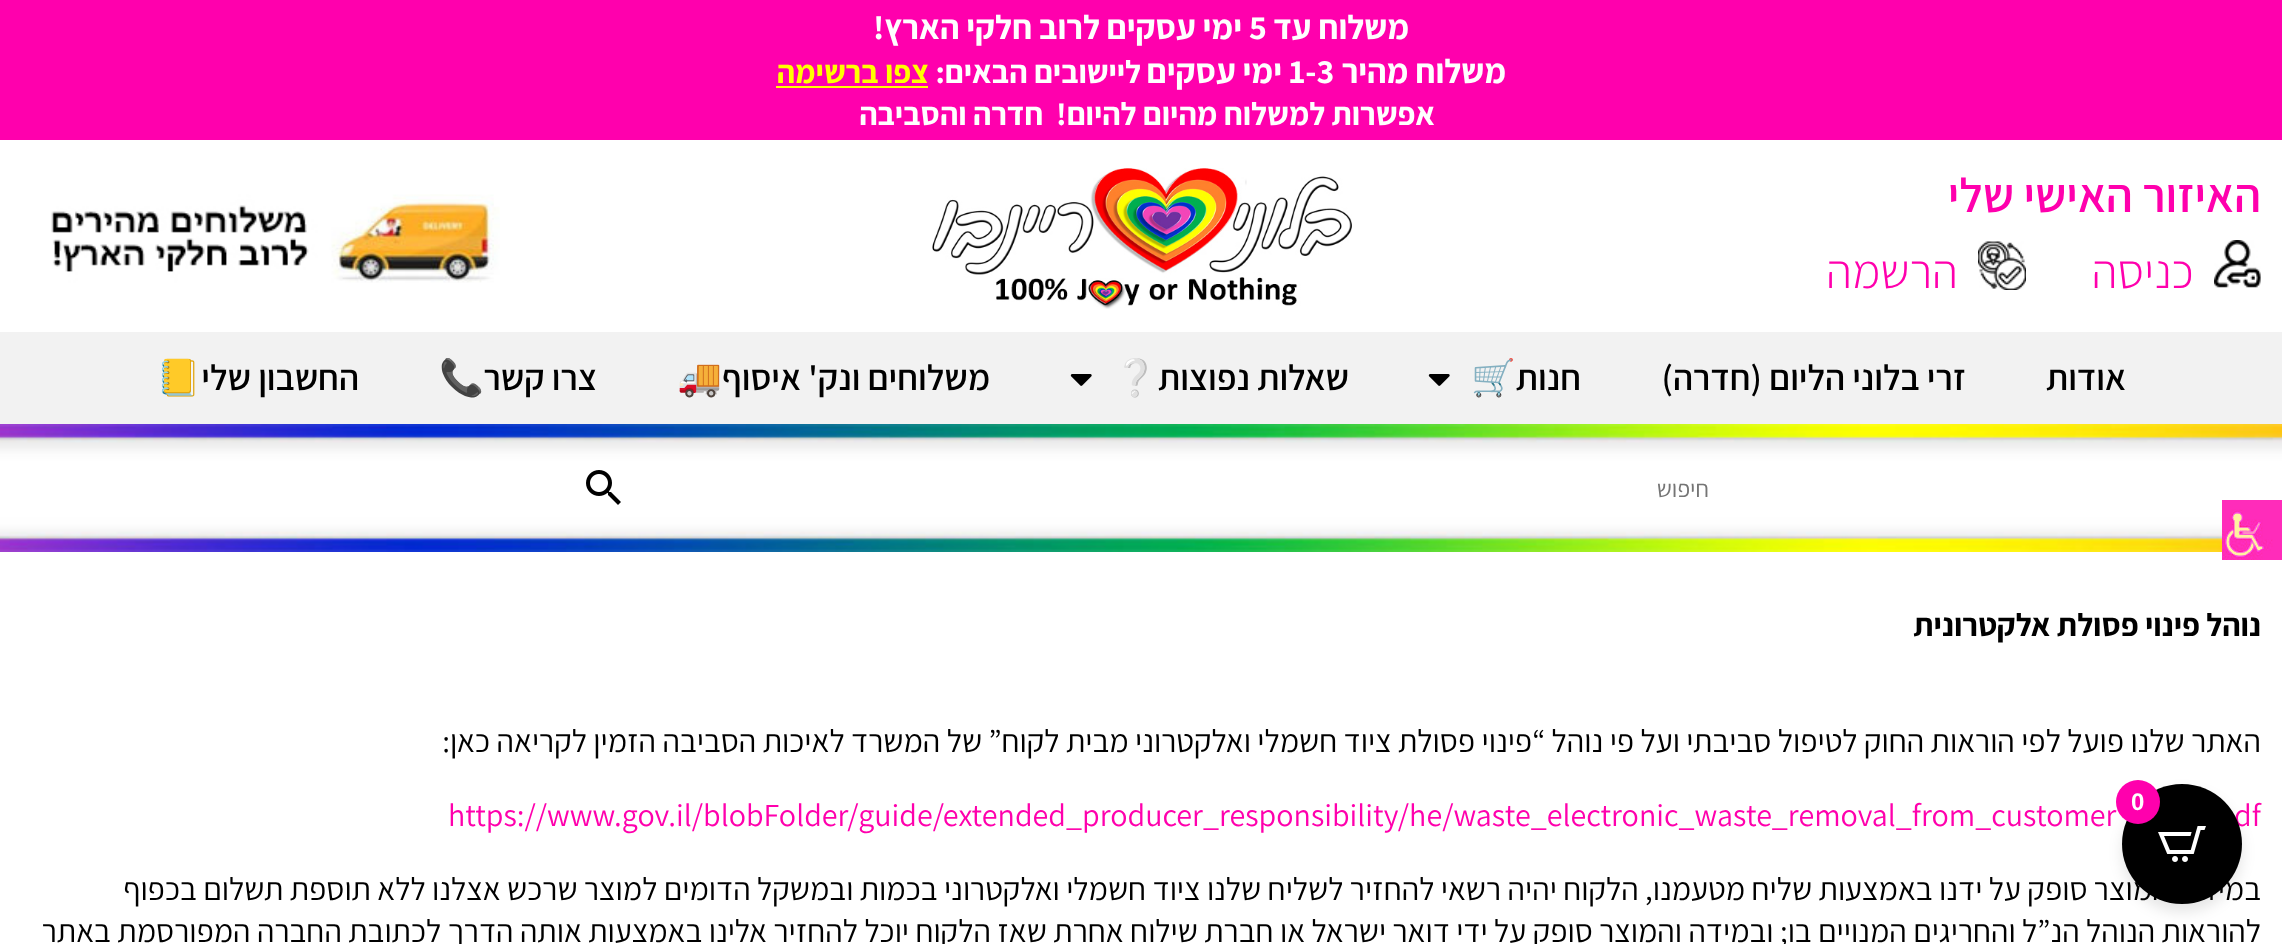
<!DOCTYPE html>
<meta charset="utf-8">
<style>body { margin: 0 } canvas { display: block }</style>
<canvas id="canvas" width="2282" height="944"></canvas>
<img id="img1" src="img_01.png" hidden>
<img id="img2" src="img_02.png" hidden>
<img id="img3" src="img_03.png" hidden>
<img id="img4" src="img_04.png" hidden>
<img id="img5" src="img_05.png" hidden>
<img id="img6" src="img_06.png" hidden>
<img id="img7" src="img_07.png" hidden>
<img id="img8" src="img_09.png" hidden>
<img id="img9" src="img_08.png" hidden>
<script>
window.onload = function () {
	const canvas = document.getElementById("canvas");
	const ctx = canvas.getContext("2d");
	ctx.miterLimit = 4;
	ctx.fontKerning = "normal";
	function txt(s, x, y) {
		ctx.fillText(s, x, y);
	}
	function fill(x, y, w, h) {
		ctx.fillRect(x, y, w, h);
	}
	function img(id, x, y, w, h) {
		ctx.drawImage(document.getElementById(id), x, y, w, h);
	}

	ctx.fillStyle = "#FFFFFF";
	fill(0, 0, 2282, 944);
	ctx.fillStyle = "#FF00AD";
	fill(0, 0, 2282, 140);
	ctx.fillStyle = "#FFFF00";
	fill(776, 86, 152, 2);
	img("img1", 2214, 240, 47, 48);
	img("img2", 1978, 241, 48, 49);
	img("img3", 932, 168, 420, 141);
	img("img4", 51, 194, 449, 89);
	ctx.fillStyle = "#F2F2F2";
	fill(0, 332, 2282, 92);
	img("img5", 1428, 374, 22, 12);
	img("img5", 1070, 374, 22, 12);
	img("img6", 0, 424, 2282, 128);
	img("img7", 586, 470, 35, 35);
	ctx.fillStyle = "rgba(0, 0, 0, 0.1)";
	ctx.filter = "blur(7px)";
	ctx.beginPath();
	ctx.roundRect(2122, 792, 120, 120, 60);
	ctx.fill();
	ctx.filter = "none";
	img("img8", 2222, 500, 60, 60);
	ctx.direction = "rtl";
	ctx.font = "bold 34px Assistant";
	ctx.fillStyle = "#FFFFFF";
	txt("משלוח עד", 1409, 39);
	ctx.direction = "ltr";
	txt("5", 1249, 39);
	ctx.direction = "rtl";
	txt("ימי עסקים לרוב חלקי הארץ!", 1242, 39);
	txt("משלוח מהיר", 1506, 83);
	ctx.direction = "ltr";
	txt("1-3", 1289, 83);
	ctx.direction = "rtl";
	txt("ימי עסקים", 1282, 83);
	ctx.font = "bold 32px Assistant";
	txt("ליישובים הבאים:", 1141, 83);
	ctx.fillStyle = "#FFFF00";
	txt("צפו ברשימה", 929, 83);
	ctx.fillStyle = "#FFFFFF";
	txt("אפשרות למשלוח מהיום להיום!  חדרה והסביבה", 1435, 125);
	ctx.font = "600 48px Assistant";
	ctx.fillStyle = "#FF00AD";
	txt("האיזור האישי שלי", 2261, 212);
	ctx.font = "300 48px Assistant";
	txt("כניסה", 2194, 288);
	txt("הרשמה", 1958, 288);
	ctx.font = "600 36px Assistant";
	ctx.fillStyle = "#000000";
	txt("אודות", 2126, 390);
	txt("זרי בלוני הליום (חדרה)", 1966, 390);
	txt("חנות", 1581, 390);
	ctx.font = "bold 36px Noto Color Emoji";
	txt("🛒", 1516, 390);
	ctx.font = "600 36px Assistant";
	txt("שאלות נפוצות", 1349, 390);
	ctx.font = "bold 36px Noto Color Emoji";
	txt("❔", 1158, 390);
	ctx.font = "600 36px Assistant";
	txt("משלוחים ונק' איסוף", 990, 390);
	ctx.font = "bold 36px Noto Color Emoji";
	txt("🚚", 722, 390);
	ctx.font = "600 36px Assistant";
	txt("צרו קשר", 597, 390);
	ctx.font = "bold 36px Noto Color Emoji";
	txt("📞", 484, 390);
	ctx.font = "600 36px Assistant";
	txt("החשבון שלי", 359, 390);
	ctx.font = "bold 36px Noto Color Emoji";
	txt("📒", 201, 390);
	ctx.font = "24px Assistant";
	ctx.fillStyle = "#757575";
	txt("חיפוש", 1709, 497);
	ctx.font = "bold 32px Assistant";
	ctx.fillStyle = "#000000";
	txt("נוהל פינוי פסולת אלקטרונית", 2261, 636);
	ctx.font = "32px Assistant";
	txt("האתר שלנו פועל לפי הוראות החוק לטיפול סביבתי ועל פי נוהל “פינוי פסולת ציוד חשמלי ואלקטרוני מבית לקוח” של המשרד לאיכות הסביבה הזמין לקריאה כאן:", 2261, 752);
	ctx.direction = "ltr";
	ctx.fillStyle = "#FF00AD";
	txt("df", 2234, 826);
	txt("https://www.gov.il/blobFolder/guide/extended_producer_responsibility/he/waste_electronic_waste_removal_from_customer", 448, 826);
	ctx.direction = "rtl";
	ctx.fillStyle = "#000000";
	txt("במידה והמוצר סופק על ידנו באמצעות שליח מטעמנו, הלקוח יהיה רשאי להחזיר לשליח שלנו ציוד חשמלי ואלקטרוני בכמות ובמשקל הדומים למוצר שרכש אצלנו ללא תוספת תשלום בכפוף", 2261, 900);
	txt("להוראות הנוהל הנ”ל והחריגים המנויים בו; ובמידה והמוצר סופק על ידי דואר ישראל או חברת שילוח אחרת שאז הלקוח יוכל להחזיר אלינו באמצעות אותה הדרך לכתובת החברה המפורסמת באתר", 2261, 942);
	ctx.beginPath();
	ctx.arc(2182, 844, 60, 0, Math.PI * 2);
	ctx.fill();
	ctx.fillStyle = "#FF00AD";
	ctx.beginPath();
	ctx.arc(2138, 802, 22, 0, Math.PI * 2);
	ctx.fill();
	ctx.direction = "ltr";
	ctx.font = "bold 24px Liberation Sans";
	ctx.fillStyle = "#FFFFFF";
	txt("0", 2131, 810);
	img("img9", 2158, 826, 48, 36);
};
</script>
